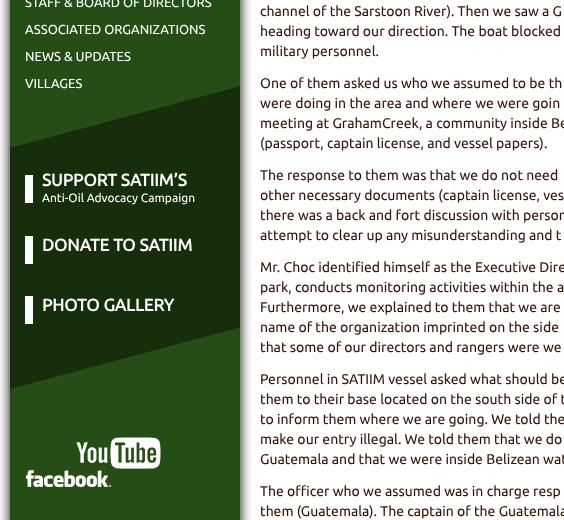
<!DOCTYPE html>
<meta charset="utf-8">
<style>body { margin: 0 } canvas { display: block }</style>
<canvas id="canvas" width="564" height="520"></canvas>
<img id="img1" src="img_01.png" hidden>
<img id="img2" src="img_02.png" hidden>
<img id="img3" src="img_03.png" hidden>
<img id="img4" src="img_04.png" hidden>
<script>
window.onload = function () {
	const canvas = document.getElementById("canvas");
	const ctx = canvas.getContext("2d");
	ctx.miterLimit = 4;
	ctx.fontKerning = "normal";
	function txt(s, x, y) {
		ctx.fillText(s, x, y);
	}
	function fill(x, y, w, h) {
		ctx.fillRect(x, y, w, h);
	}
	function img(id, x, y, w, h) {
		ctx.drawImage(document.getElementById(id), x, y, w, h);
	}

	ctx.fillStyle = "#FFFFFF";
	fill(0, 0, 564, 520);
	img("img1", 0, 0, 564, 520);
	img("img2", 10, 86, 230, 303);
	fill(25, 175, 8, 28);
	fill(25, 236, 8, 28);
	fill(25, 296, 8, 28);
	img("img3", 76, 437, 85, 32);
	img("img4", 25, 470, 87, 17);
	ctx.font = "13px Ubuntu";
	txt("STAFF & BOARD OF DIRECTORS", 25, 7);
	txt("ASSOCIATED ORGANIZATIONS", 25, 34);
	txt("NEWS & UPDATES", 25, 61);
	txt("VILLAGES", 25, 88);
	ctx.font = "bold 17px Ubuntu";
	txt("SUPPORT SATIIM’S", 42, 186);
	ctx.font = "12px Ubuntu";
	txt("Anti-Oil Advocacy Campaign", 42, 202);
	ctx.font = "bold 17px Ubuntu";
	txt("DONATE TO SATIIM", 42, 251);
	txt("PHOTO GALLERY", 42, 311);
	ctx.font = "14px Ubuntu";
	ctx.fillStyle = "#31140B";
	txt("channel of the Sarstoon River). Then we saw a G", 260, 16);
	txt("heading toward our direction. The boat blocked", 260, 36);
	txt("military personnel.", 260, 56);
	txt("One of them asked us who we assumed to be th", 260, 88);
	txt("were doing in the area and where we were goin", 260, 108);
	txt("meeting at GrahamCreek, a community inside Be", 260, 128);
	txt("(passport, captain license, and vessel papers).", 260, 148);
	txt("The response to them was that we do not need", 260, 180);
	txt("other necessary documents (captain license, ves", 260, 200);
	txt("there was a back and fort discussion with person", 260, 220);
	txt("attempt to clear up any misunderstanding and t", 260, 240);
	txt("Mr. Choc identified himself as the Executive Dire", 260, 272);
	txt("park, conducts monitoring activities within the a", 260, 292);
	txt("Furthermore, we explained to them that we are", 260, 312);
	txt("name of the organization imprinted on the side", 260, 332);
	txt("that some of our directors and rangers were we", 260, 352);
	txt("Personnel in SATIIM vessel asked what should be", 260, 384);
	txt("them to their base located on the south side of t", 260, 404);
	txt("to inform them where we are going. We told the", 260, 424);
	txt("make our entry illegal. We told them that we do", 260, 444);
	txt("Guatemala and that we were inside Belizean wat", 260, 464);
	txt("The officer who we assumed was in charge resp", 260, 496);
	txt("them (Guatemala). The captain of the Guatemala", 260, 516);
};
</script>
